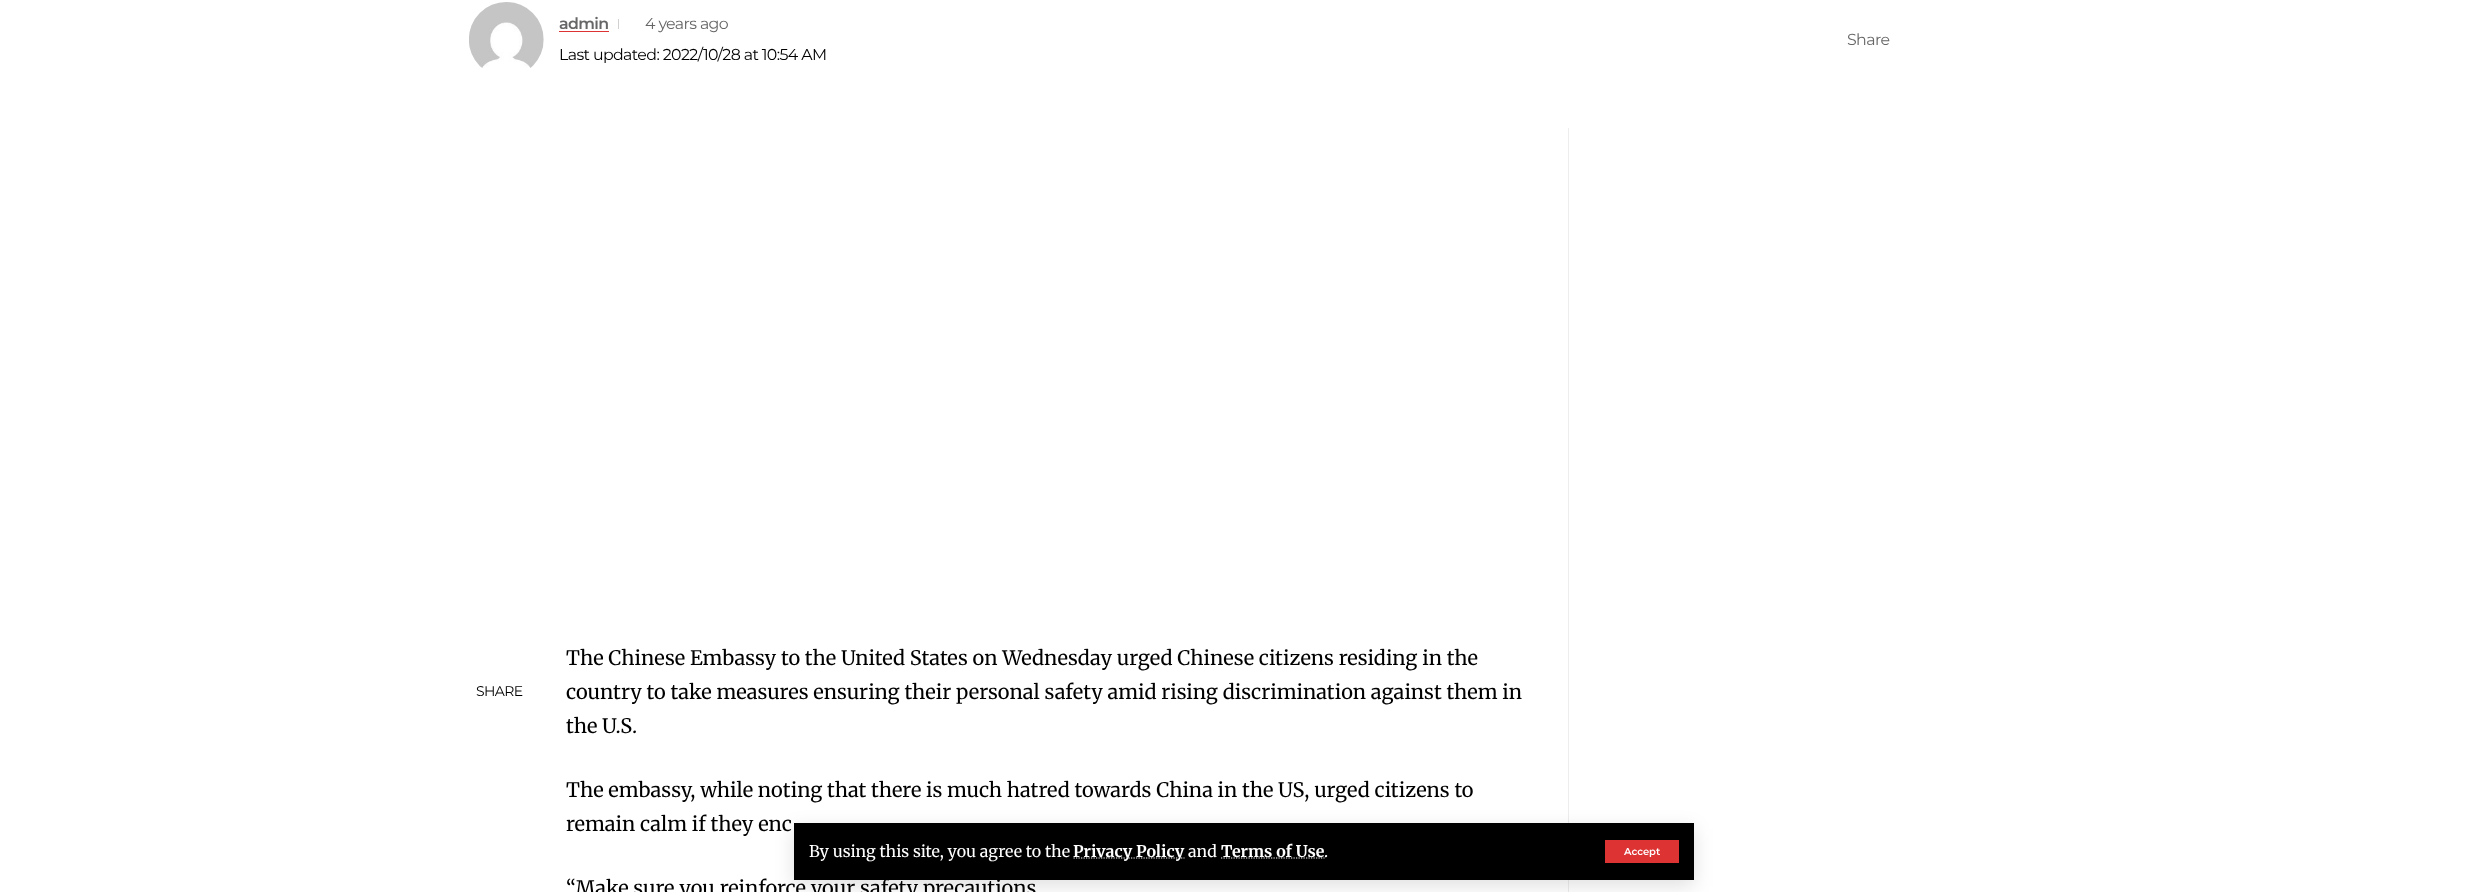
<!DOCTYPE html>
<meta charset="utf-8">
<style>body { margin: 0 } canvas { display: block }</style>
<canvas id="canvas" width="2487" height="892"></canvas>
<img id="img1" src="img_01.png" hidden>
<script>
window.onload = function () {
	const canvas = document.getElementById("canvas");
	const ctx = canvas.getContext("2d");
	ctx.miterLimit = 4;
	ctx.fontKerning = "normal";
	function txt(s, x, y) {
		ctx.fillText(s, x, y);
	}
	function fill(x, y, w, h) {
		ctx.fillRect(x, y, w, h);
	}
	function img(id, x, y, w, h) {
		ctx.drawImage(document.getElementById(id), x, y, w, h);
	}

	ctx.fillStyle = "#FFFFFF";
	fill(0, 0, 2487, 892);
	img("img1", 469, 2, 75, 66);
	ctx.fillStyle = "#DD3333";
	fill(559, 31, 50, 1);
	ctx.fillStyle = "#D1D1D1";
	fill(618, 19, 1, 10);
	ctx.fillStyle = "#EDEDED";
	fill(1568, 128, 1, 764);
	ctx.fillStyle = "rgba(0, 0, 0, 0.12)";
	ctx.filter = "blur(9.5px)";
	ctx.beginPath();
	ctx.rect(794, 829, 900, 57);
	ctx.fill();
	ctx.filter = "none";
	ctx.fillStyle = "#000000";
	fill(794, 823, 900, 57);
	ctx.beginPath();
	ctx.moveTo(1073.5, 858);
	ctx.lineTo(1184.5, 858);
	ctx.strokeStyle = "#FFFFFF";
	ctx.lineWidth = 1.2;
	ctx.setLineDash([1.25, 1.25]);
	ctx.stroke();
	ctx.beginPath();
	ctx.moveTo(1221, 858);
	ctx.lineTo(1324.5, 858);
	ctx.stroke();
	ctx.fillStyle = "#DD3333";
	fill(1605, 840, 74, 23);
	ctx.letterSpacing = "-0.6px";
	ctx.font = "600 15.8px Montserrat";
	ctx.fillStyle = "#666666";
	txt("admin", 559, 29);
	ctx.font = "15.8px Montserrat";
	txt("4 years ago", 645, 29);
	ctx.fillStyle = "#000000";
	txt("Last updated: 2022/10/28 at 10:54 AM", 559, 60);
	ctx.fillStyle = "#666666";
	txt("Share", 1847, 45);
	ctx.font = "14px Montserrat";
	ctx.fillStyle = "#000000";
	txt("SHARE", 476, 696);
	ctx.letterSpacing = "0px";
	ctx.font = "20px Merriweather";
	txt("The Chinese Embassy to the United States on Wednesday urged Chinese citizens residing in the", 566, 665);
	txt("country to take measures ensuring their personal safety amid rising discrimination against them in", 566, 699);
	txt("the U.S.", 566, 733);
	txt("The embassy, while noting that there is much hatred towards China in the US, urged citizens to", 566, 797);
	txt("remain calm if they enc", 566, 831);
	txt("“Make sure you reinforce your safety precautions", 566, 895);
	ctx.font = "16px Merriweather";
	ctx.fillStyle = "#FFFFFF";
	txt("By using this site, you agree to the", 809, 857);
	ctx.font = "bold 16px Merriweather";
	txt("Privacy Policy", 1073, 857);
	ctx.font = "16px Merriweather";
	txt("and", 1188, 857);
	ctx.font = "bold 16px Merriweather";
	txt("Terms of Use", 1221, 857);
	ctx.font = "16px Merriweather";
	txt(".", 1324, 857);
	ctx.font = "600 10px Montserrat";
	txt("Accept", 1624, 855);
};
</script>
